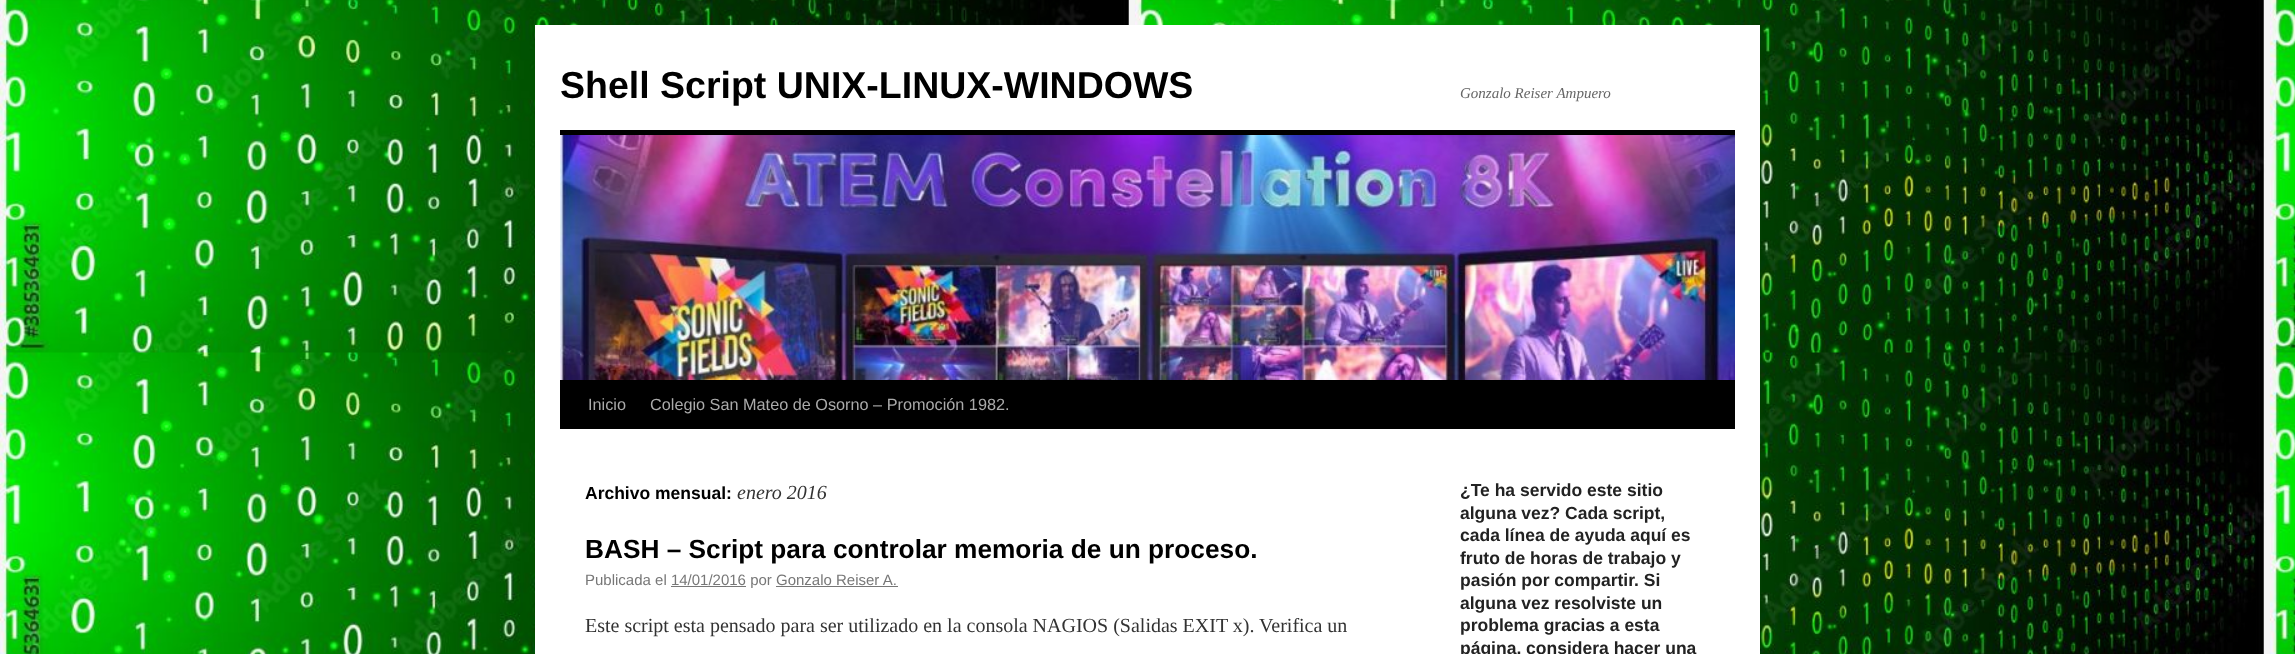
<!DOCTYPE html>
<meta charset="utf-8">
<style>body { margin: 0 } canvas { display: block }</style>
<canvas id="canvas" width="2295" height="654"></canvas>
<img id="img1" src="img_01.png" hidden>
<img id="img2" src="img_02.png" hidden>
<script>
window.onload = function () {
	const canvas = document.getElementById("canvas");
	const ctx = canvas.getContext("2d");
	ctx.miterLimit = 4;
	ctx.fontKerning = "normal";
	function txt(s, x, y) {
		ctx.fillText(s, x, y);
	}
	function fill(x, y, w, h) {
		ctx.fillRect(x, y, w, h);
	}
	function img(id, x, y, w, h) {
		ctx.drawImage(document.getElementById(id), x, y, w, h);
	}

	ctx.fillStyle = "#FFFFFF";
	fill(0, 0, 2295, 654);
	img("img1", 0, 0, 2295, 654);
	fill(535, 25, 1225, 629);
	ctx.fillStyle = "#000000";
	fill(560, 130, 1175, 5);
	fill(560, 380, 1175, 49);
	img("img2", 560, 135, 1175, 245);
	ctx.fillStyle = "#777777";
	fill(671, 586, 75, 1);
	fill(776, 586, 122, 1);
	ctx.font = "bold 37.5px Liberation Sans";
	ctx.fillStyle = "#000000";
	txt("Shell Script UNIX-LINUX-WINDOWS", 560, 98);
	ctx.font = "italic 15px Liberation Serif";
	ctx.fillStyle = "#666666";
	txt("Gonzalo Reiser Ampuero", 1460, 98);
	ctx.font = "16.25px Liberation Sans";
	ctx.fillStyle = "#AAAAAA";
	txt("Inicio", 588, 410);
	txt("Colegio San Mateo de Osorno – Promoción 1982.", 650, 410);
	ctx.font = "bold 17.5px Liberation Sans";
	ctx.fillStyle = "#000000";
	txt("Archivo mensual:", 585, 499);
	ctx.font = "italic 20px Liberation Serif";
	ctx.fillStyle = "#333333";
	txt("enero 2016", 737, 499);
	ctx.font = "bold 26.25px Liberation Sans";
	ctx.fillStyle = "#000000";
	txt("BASH – Script para controlar memoria de un proceso.", 585, 558);
	ctx.font = "15px Liberation Sans";
	ctx.fillStyle = "#777777";
	txt("Publicada el 14/01/2016 por Gonzalo Reiser A.", 585, 585);
	ctx.font = "20px Liberation Serif";
	ctx.fillStyle = "#333333";
	txt("Este script esta pensado para ser utilizado en la consola NAGIOS (Salidas EXIT x). Verifica un", 585, 632);
	ctx.font = "bold 17.5px Liberation Sans";
	ctx.fillStyle = "#222222";
	txt("¿Te ha servido este sitio", 1460, 496);
	txt("alguna vez? Cada script,", 1460, 519);
	txt("cada línea de ayuda aquí es", 1460, 541);
	txt("fruto de horas de trabajo y", 1460, 564);
	txt("pasión por compartir. Si", 1460, 586);
	txt("alguna vez resolviste un", 1460, 609);
	txt("problema gracias a esta", 1460, 631);
	txt("página, considera hacer una", 1460, 654);
};
</script>
